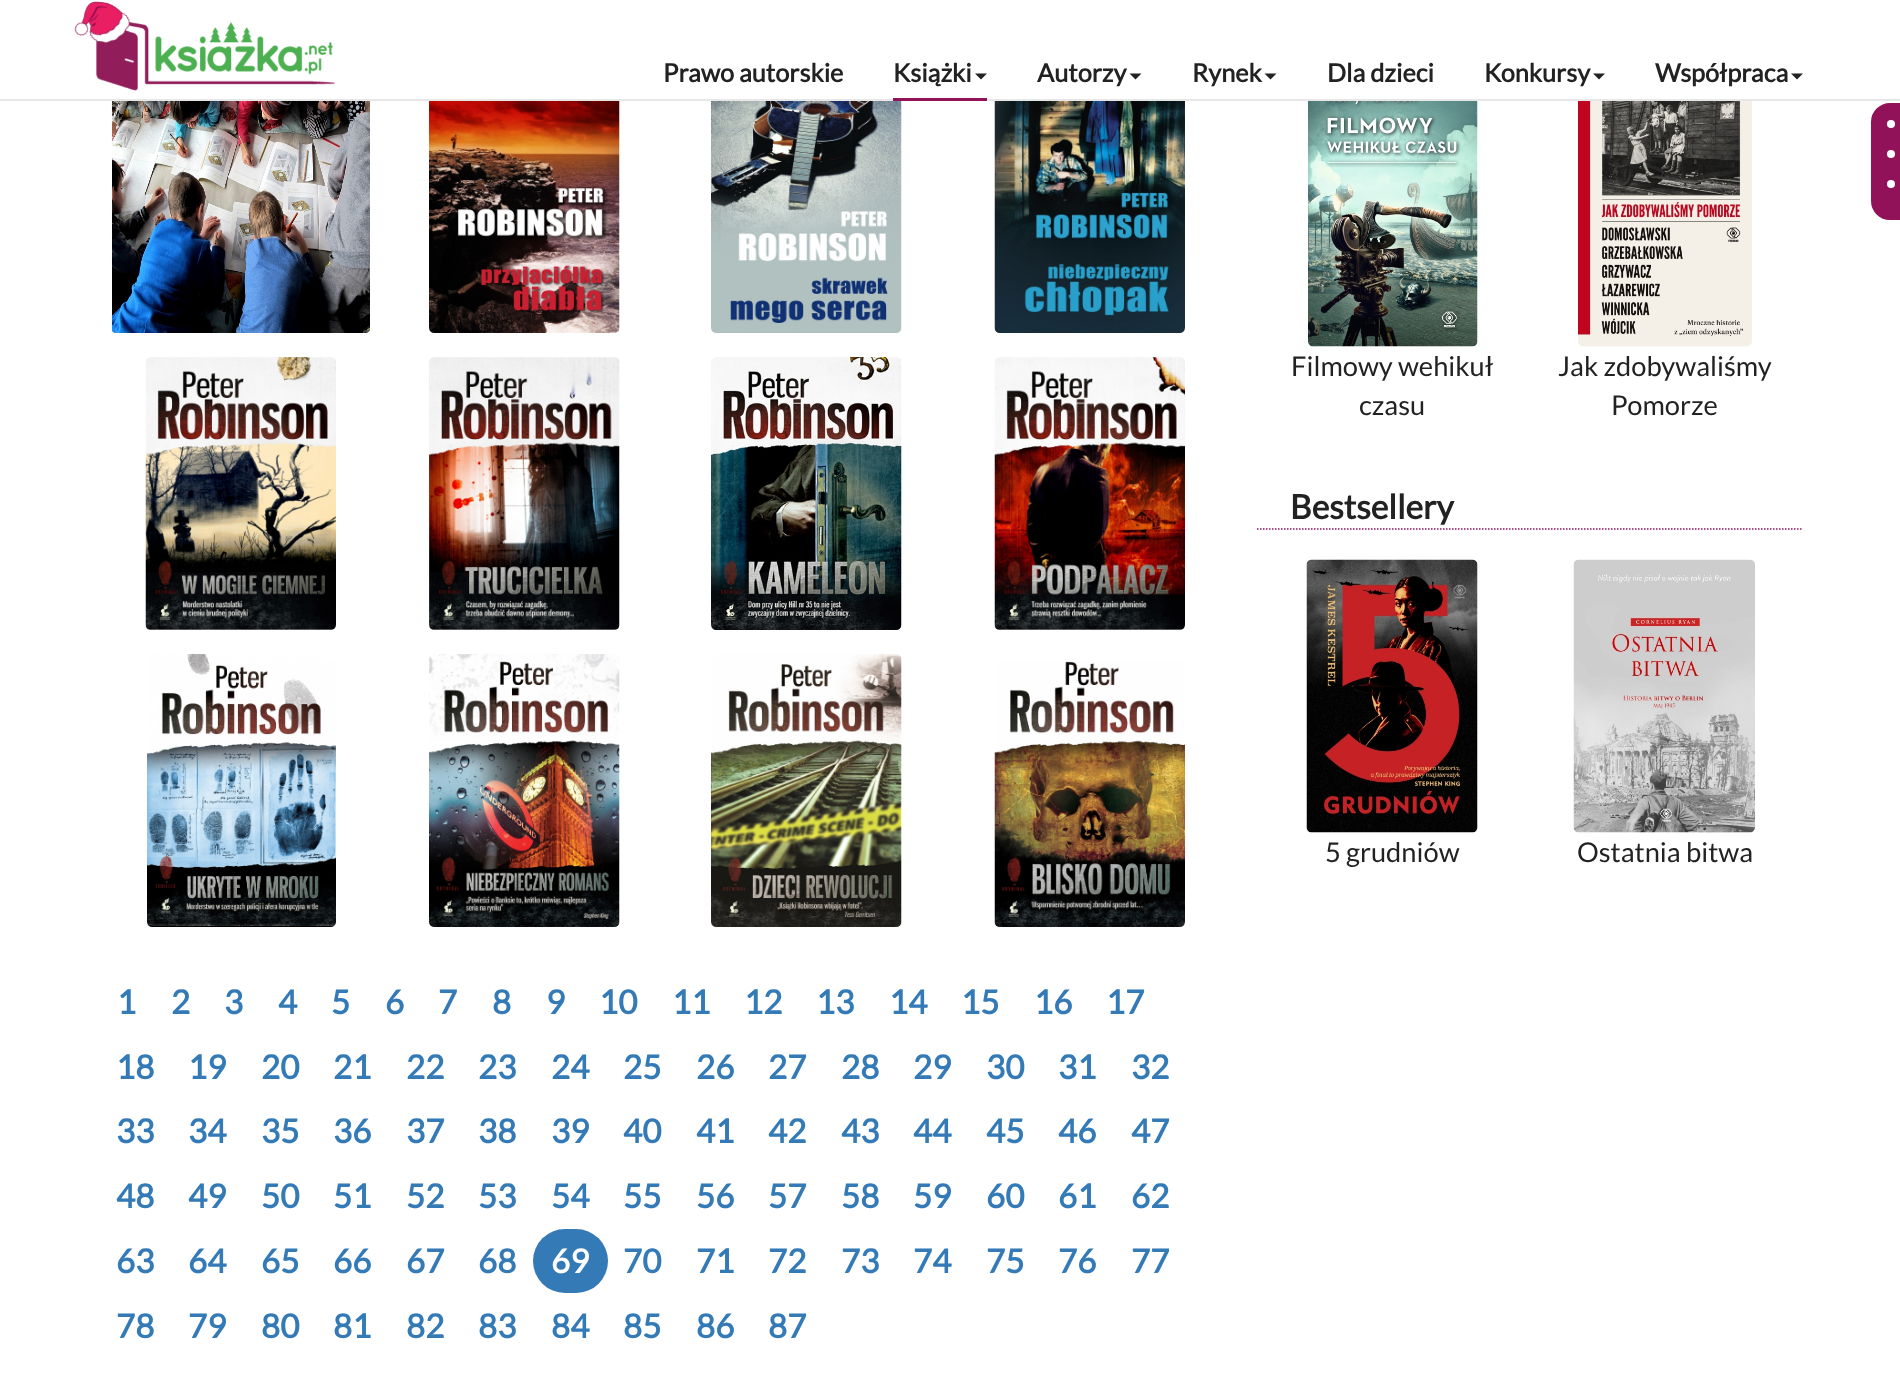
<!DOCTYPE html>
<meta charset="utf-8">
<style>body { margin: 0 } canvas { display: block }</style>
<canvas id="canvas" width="1900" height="1394"></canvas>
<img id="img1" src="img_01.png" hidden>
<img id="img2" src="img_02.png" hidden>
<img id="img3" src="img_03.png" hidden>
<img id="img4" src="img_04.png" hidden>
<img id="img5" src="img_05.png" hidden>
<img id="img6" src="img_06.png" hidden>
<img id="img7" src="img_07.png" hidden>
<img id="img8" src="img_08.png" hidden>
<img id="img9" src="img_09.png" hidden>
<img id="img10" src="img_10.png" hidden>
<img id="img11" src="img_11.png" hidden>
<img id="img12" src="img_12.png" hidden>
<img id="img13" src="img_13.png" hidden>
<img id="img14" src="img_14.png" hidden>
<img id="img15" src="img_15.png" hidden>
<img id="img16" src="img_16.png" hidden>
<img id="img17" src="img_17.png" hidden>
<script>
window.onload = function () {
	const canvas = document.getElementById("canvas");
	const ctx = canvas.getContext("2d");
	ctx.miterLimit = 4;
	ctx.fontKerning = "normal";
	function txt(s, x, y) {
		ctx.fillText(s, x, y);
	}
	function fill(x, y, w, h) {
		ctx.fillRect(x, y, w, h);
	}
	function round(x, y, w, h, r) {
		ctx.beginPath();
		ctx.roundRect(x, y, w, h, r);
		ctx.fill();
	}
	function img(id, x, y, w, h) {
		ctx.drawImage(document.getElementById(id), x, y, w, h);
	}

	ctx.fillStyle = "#FFFFFF";
	fill(0, 0, 1900, 1394);
	ctx.fillStyle = "#E7E7E7";
	fill(0, 99, 1900, 2);
	img("img1", 74, 1, 262, 90);
	ctx.fillStyle = "#222222";
	ctx.beginPath();
	ctx.moveTo(975, 73.5);
	ctx.lineTo(987, 73.5);
	ctx.lineTo(981, 79.5);
	ctx.closePath();
	ctx.fill();
	ctx.fillStyle = "#911259";
	fill(893, 98, 94, 3);
	ctx.fillStyle = "#222222";
	ctx.beginPath();
	ctx.moveTo(1129.5, 73.5);
	ctx.lineTo(1141.5, 73.5);
	ctx.lineTo(1135.5, 79.5);
	ctx.closePath();
	ctx.fill();
	ctx.beginPath();
	ctx.moveTo(1264.5, 73.5);
	ctx.lineTo(1276.5, 73.5);
	ctx.lineTo(1270.5, 79.5);
	ctx.closePath();
	ctx.fill();
	ctx.beginPath();
	ctx.moveTo(1593, 73.5);
	ctx.lineTo(1605, 73.5);
	ctx.lineTo(1599, 79.5);
	ctx.closePath();
	ctx.fill();
	ctx.beginPath();
	ctx.moveTo(1791, 73.5);
	ctx.lineTo(1803, 73.5);
	ctx.lineTo(1797, 79.5);
	ctx.closePath();
	ctx.fill();
	ctx.fillStyle = "#911259";
	ctx.beginPath();
	ctx.roundRect(1870, 102, 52, 119, 20);
	ctx.fill();
	ctx.strokeStyle = "#FFFFFF";
	ctx.lineWidth = 2;
	ctx.stroke();
	ctx.fillStyle = "#FFFFFF";
	ctx.beginPath();
	ctx.arc(1891, 124, 4, 0, Math.PI * 2);
	ctx.fill();
	ctx.beginPath();
	ctx.arc(1891, 154, 4, 0, Math.PI * 2);
	ctx.fill();
	ctx.beginPath();
	ctx.arc(1891, 184, 4, 0, Math.PI * 2);
	ctx.fill();
	img("img2", 1308, 101, 170, 246);
	img("img3", 1578, 101, 174, 246);
	ctx.beginPath();
	ctx.moveTo(1257, 529);
	ctx.lineTo(1801.5, 529);
	ctx.strokeStyle = "#911259";
	ctx.lineWidth = 1.5;
	ctx.setLineDash([1.5, 1.5]);
	ctx.stroke();
	img("img4", 1306, 559, 172, 274);
	img("img5", 1573, 559, 182, 274);
	img("img6", 111, 101, 260, 232);
	img("img7", 429, 101, 191, 232);
	img("img8", 711, 101, 191, 232);
	img("img9", 994, 101, 191, 232);
	img("img10", 145, 357, 191, 273);
	img("img11", 429, 357, 191, 273);
	img("img12", 711, 357, 191, 273);
	img("img13", 994, 357, 191, 273);
	img("img14", 147, 654, 189, 273);
	img("img15", 429, 654, 191, 273);
	img("img16", 711, 654, 191, 273);
	img("img17", 994, 661, 191, 266);
	ctx.fillStyle = "#337AB7";
	round(533, 1229, 75, 64, 32);
	ctx.font = "bold 25.25px Lato";
	ctx.fillStyle = "#222222";
	txt("Prawo autorskie", 663, 82);
	txt("Książki", 893, 82);
	txt("Autorzy", 1037, 82);
	txt("Rynek", 1192, 82);
	txt("Dla dzieci", 1327, 82);
	txt("Konkursy", 1484, 82);
	txt("Współpraca", 1655, 82);
	ctx.font = "27.25px Lato";
	txt("Filmowy wehikuł", 1291, 376);
	txt("czasu", 1359, 415);
	txt("Jak zdobywaliśmy", 1558, 376);
	txt("Pomorze", 1611, 415);
	ctx.font = "bold 33.5px Lato";
	txt("Bestsellery", 1290, 519);
	ctx.font = "27.25px Lato";
	txt("5 grudniów", 1325, 862);
	txt("Ostatnia bitwa", 1577, 862);
	ctx.font = "bold 33px Lato";
	ctx.fillStyle = "#337AB7";
	txt("1", 117, 1014);
	txt("2", 171, 1014);
	txt("3", 224, 1014);
	txt("4", 278, 1014);
	txt("5", 331, 1014);
	txt("6", 385, 1014);
	txt("7", 438, 1014);
	txt("8", 492, 1014);
	txt("9", 546, 1014);
	txt("10", 599, 1014);
	txt("11", 672, 1014);
	txt("12", 744, 1014);
	txt("13", 816, 1014);
	txt("14", 889, 1014);
	txt("15", 961, 1014);
	txt("16", 1034, 1014);
	txt("17", 1106, 1014);
	txt("18", 116, 1079);
	txt("19", 188, 1079);
	txt("20", 261, 1079);
	txt("21", 333, 1079);
	txt("22", 406, 1079);
	txt("23", 478, 1079);
	txt("24", 551, 1079);
	txt("25", 623, 1079);
	txt("26", 696, 1079);
	txt("27", 768, 1079);
	txt("28", 841, 1079);
	txt("29", 913, 1079);
	txt("30", 986, 1079);
	txt("31", 1058, 1079);
	txt("32", 1131, 1079);
	txt("33", 116, 1143);
	txt("34", 188, 1143);
	txt("35", 261, 1143);
	txt("36", 333, 1143);
	txt("37", 406, 1143);
	txt("38", 478, 1143);
	txt("39", 551, 1143);
	txt("40", 623, 1143);
	txt("41", 696, 1143);
	txt("42", 768, 1143);
	txt("43", 841, 1143);
	txt("44", 913, 1143);
	txt("45", 986, 1143);
	txt("46", 1058, 1143);
	txt("47", 1131, 1143);
	txt("48", 116, 1208);
	txt("49", 188, 1208);
	txt("50", 261, 1208);
	txt("51", 333, 1208);
	txt("52", 406, 1208);
	txt("53", 478, 1208);
	txt("54", 551, 1208);
	txt("55", 623, 1208);
	txt("56", 696, 1208);
	txt("57", 768, 1208);
	txt("58", 841, 1208);
	txt("59", 913, 1208);
	txt("60", 986, 1208);
	txt("61", 1058, 1208);
	txt("62", 1131, 1208);
	txt("63", 116, 1273);
	txt("64", 188, 1273);
	txt("65", 261, 1273);
	txt("66", 333, 1273);
	txt("67", 406, 1273);
	txt("68", 478, 1273);
	ctx.fillStyle = "#FFFFFF";
	txt("69", 551, 1273);
	ctx.fillStyle = "#337AB7";
	txt("70", 623, 1273);
	txt("71", 696, 1273);
	txt("72", 768, 1273);
	txt("73", 841, 1273);
	txt("74", 913, 1273);
	txt("75", 986, 1273);
	txt("76", 1058, 1273);
	txt("77", 1131, 1273);
	txt("78", 116, 1338);
	txt("79", 188, 1338);
	txt("80", 261, 1338);
	txt("81", 333, 1338);
	txt("82", 406, 1338);
	txt("83", 478, 1338);
	txt("84", 551, 1338);
	txt("85", 623, 1338);
	txt("86", 696, 1338);
	txt("87", 768, 1338);
};
</script>
